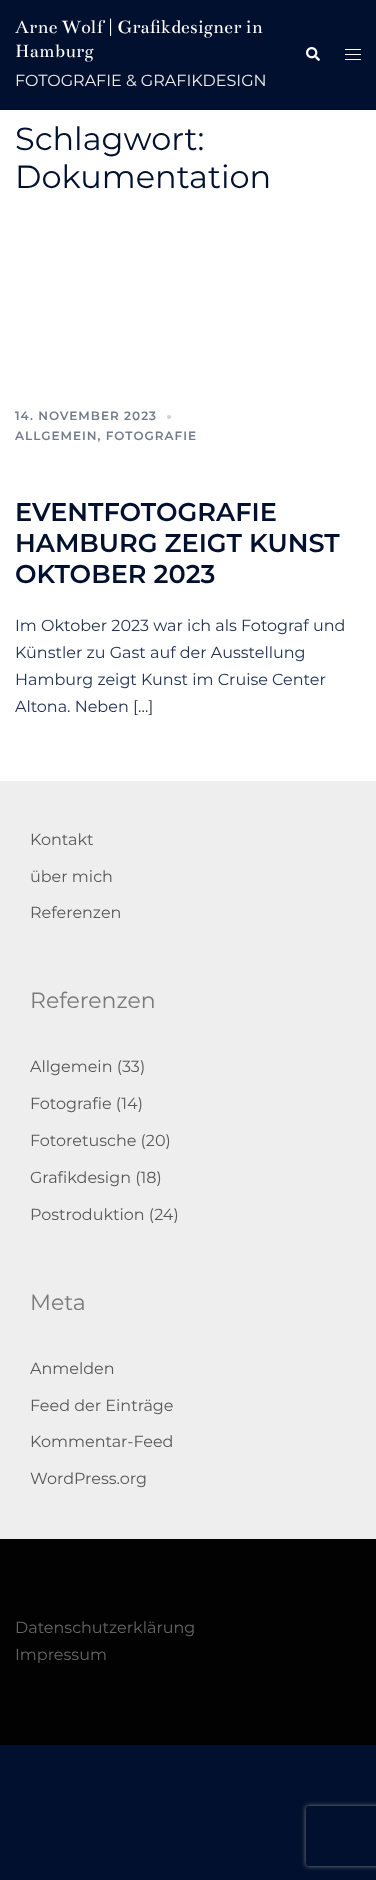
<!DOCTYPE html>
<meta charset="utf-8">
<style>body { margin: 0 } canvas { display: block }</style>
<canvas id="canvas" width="376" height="1880"></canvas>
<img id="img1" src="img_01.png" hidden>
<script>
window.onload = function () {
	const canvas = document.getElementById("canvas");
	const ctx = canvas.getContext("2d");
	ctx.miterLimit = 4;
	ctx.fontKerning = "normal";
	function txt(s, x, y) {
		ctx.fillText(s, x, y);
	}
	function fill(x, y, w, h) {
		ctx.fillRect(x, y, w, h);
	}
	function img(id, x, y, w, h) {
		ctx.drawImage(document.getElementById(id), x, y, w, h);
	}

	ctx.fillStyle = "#00102E";
	fill(0, 0, 376, 1880);
	img("img1", 306, 47, 14, 14);
	ctx.fillStyle = "#FFFFFF";
	fill(345, 49, 16, 1);
	fill(345, 54, 16, 1);
	fill(345, 59, 16, 1);
	fill(0, 110, 376, 671);
	ctx.fillStyle = "#CCCFD5";
	ctx.beginPath();
	ctx.arc(169, 417, 2, 0, Math.PI * 2);
	ctx.fill();
	ctx.fillStyle = "#EEEEEE";
	fill(0, 781, 376, 758);
	ctx.fillStyle = "#020202";
	fill(0, 1539, 376, 206);
	ctx.save();
	ctx.beginPath();
	ctx.moveTo(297, 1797);
	ctx.lineTo(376, 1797);
	ctx.lineTo(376, 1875);
	ctx.lineTo(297, 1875);
	ctx.closePath();
	ctx.moveTo(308, 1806);
	ctx.lineTo(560, 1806);
	ctx.bezierCurveTo(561, 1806, 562, 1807, 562, 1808);
	ctx.lineTo(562, 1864);
	ctx.bezierCurveTo(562, 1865, 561, 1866, 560, 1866);
	ctx.lineTo(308, 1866);
	ctx.bezierCurveTo(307, 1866, 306, 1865, 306, 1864);
	ctx.lineTo(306, 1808);
	ctx.bezierCurveTo(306, 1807, 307, 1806, 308, 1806);
	ctx.closePath();
	ctx.clip("evenodd");
	ctx.fillStyle = "#808080";
	ctx.filter = "blur(2.5px)";
	ctx.beginPath();
	ctx.roundRect(306, 1806, 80, 60, 2);
	ctx.fill();
	ctx.filter = "none";
	ctx.restore();
	ctx.font = "20px Bentham";
	ctx.fillStyle = "#FFFFFF";
	txt("Arne Wolf | Grafikdesigner in", 15, 33);
	txt("Hamburg", 15, 57);
	ctx.font = "16px Montserrat";
	ctx.fillStyle = "#EFEFEF";
	txt("FOTOGRAFIE & GRAFIKDESIGN", 15, 86);
	ctx.font = "32px Montserrat";
	ctx.fillStyle = "#00102E";
	txt("Schlagwort:", 15, 150);
	txt("Dokumentation", 15, 188);
	ctx.letterSpacing = "1px";
	ctx.font = "600 12px Montserrat";
	ctx.fillStyle = "#737C8C";
	txt("14. NOVEMBER 2023", 15, 420);
	txt("ALLGEMEIN, FOTOGRAFIE", 15, 440);
	ctx.letterSpacing = "0px";
	ctx.font = "600 25.6px Montserrat";
	ctx.fillStyle = "#00102E";
	txt("EVENTFOTOGRAFIE", 15, 521);
	txt("HAMBURG ZEIGT KUNST", 15, 552);
	txt("OKTOBER 2023", 15, 583);
	ctx.font = "16px Montserrat";
	ctx.fillStyle = "#233452";
	txt("Im Oktober 2023 war ich als Fotograf und", 15, 631);
	txt("Künstler zu Gast auf der Ausstellung", 15, 658);
	txt("Hamburg zeigt Kunst im Cruise Center", 15, 685);
	txt("Altona. Neben […]", 15, 712);
	ctx.fillStyle = "#595959";
	txt("Kontakt", 30, 845);
	txt("über mich", 30, 882);
	txt("Referenzen", 30, 918);
	ctx.font = "22px Montserrat";
	ctx.fillStyle = "#7A7A7A";
	txt("Referenzen", 30, 1008);
	ctx.font = "16px Montserrat";
	ctx.fillStyle = "#595959";
	txt("Allgemein (33)", 30, 1072);
	txt("Fotografie (14)", 30, 1109);
	txt("Fotoretusche (20)", 30, 1146);
	txt("Grafikdesign (18)", 30, 1183);
	txt("Postroduktion (24)", 30, 1220);
	ctx.font = "22px Montserrat";
	ctx.fillStyle = "#7A7A7A";
	txt("Meta", 30, 1310);
	ctx.font = "16px Montserrat";
	ctx.fillStyle = "#595959";
	txt("Anmelden", 30, 1374);
	txt("Feed der Einträge", 30, 1411);
	txt("Kommentar-Feed", 30, 1447);
	txt("WordPress.org", 30, 1484);
	ctx.fillStyle = "#666666";
	txt("Datenschutzerklärung", 15, 1633);
	txt("Impressum", 15, 1660);
};
</script>
